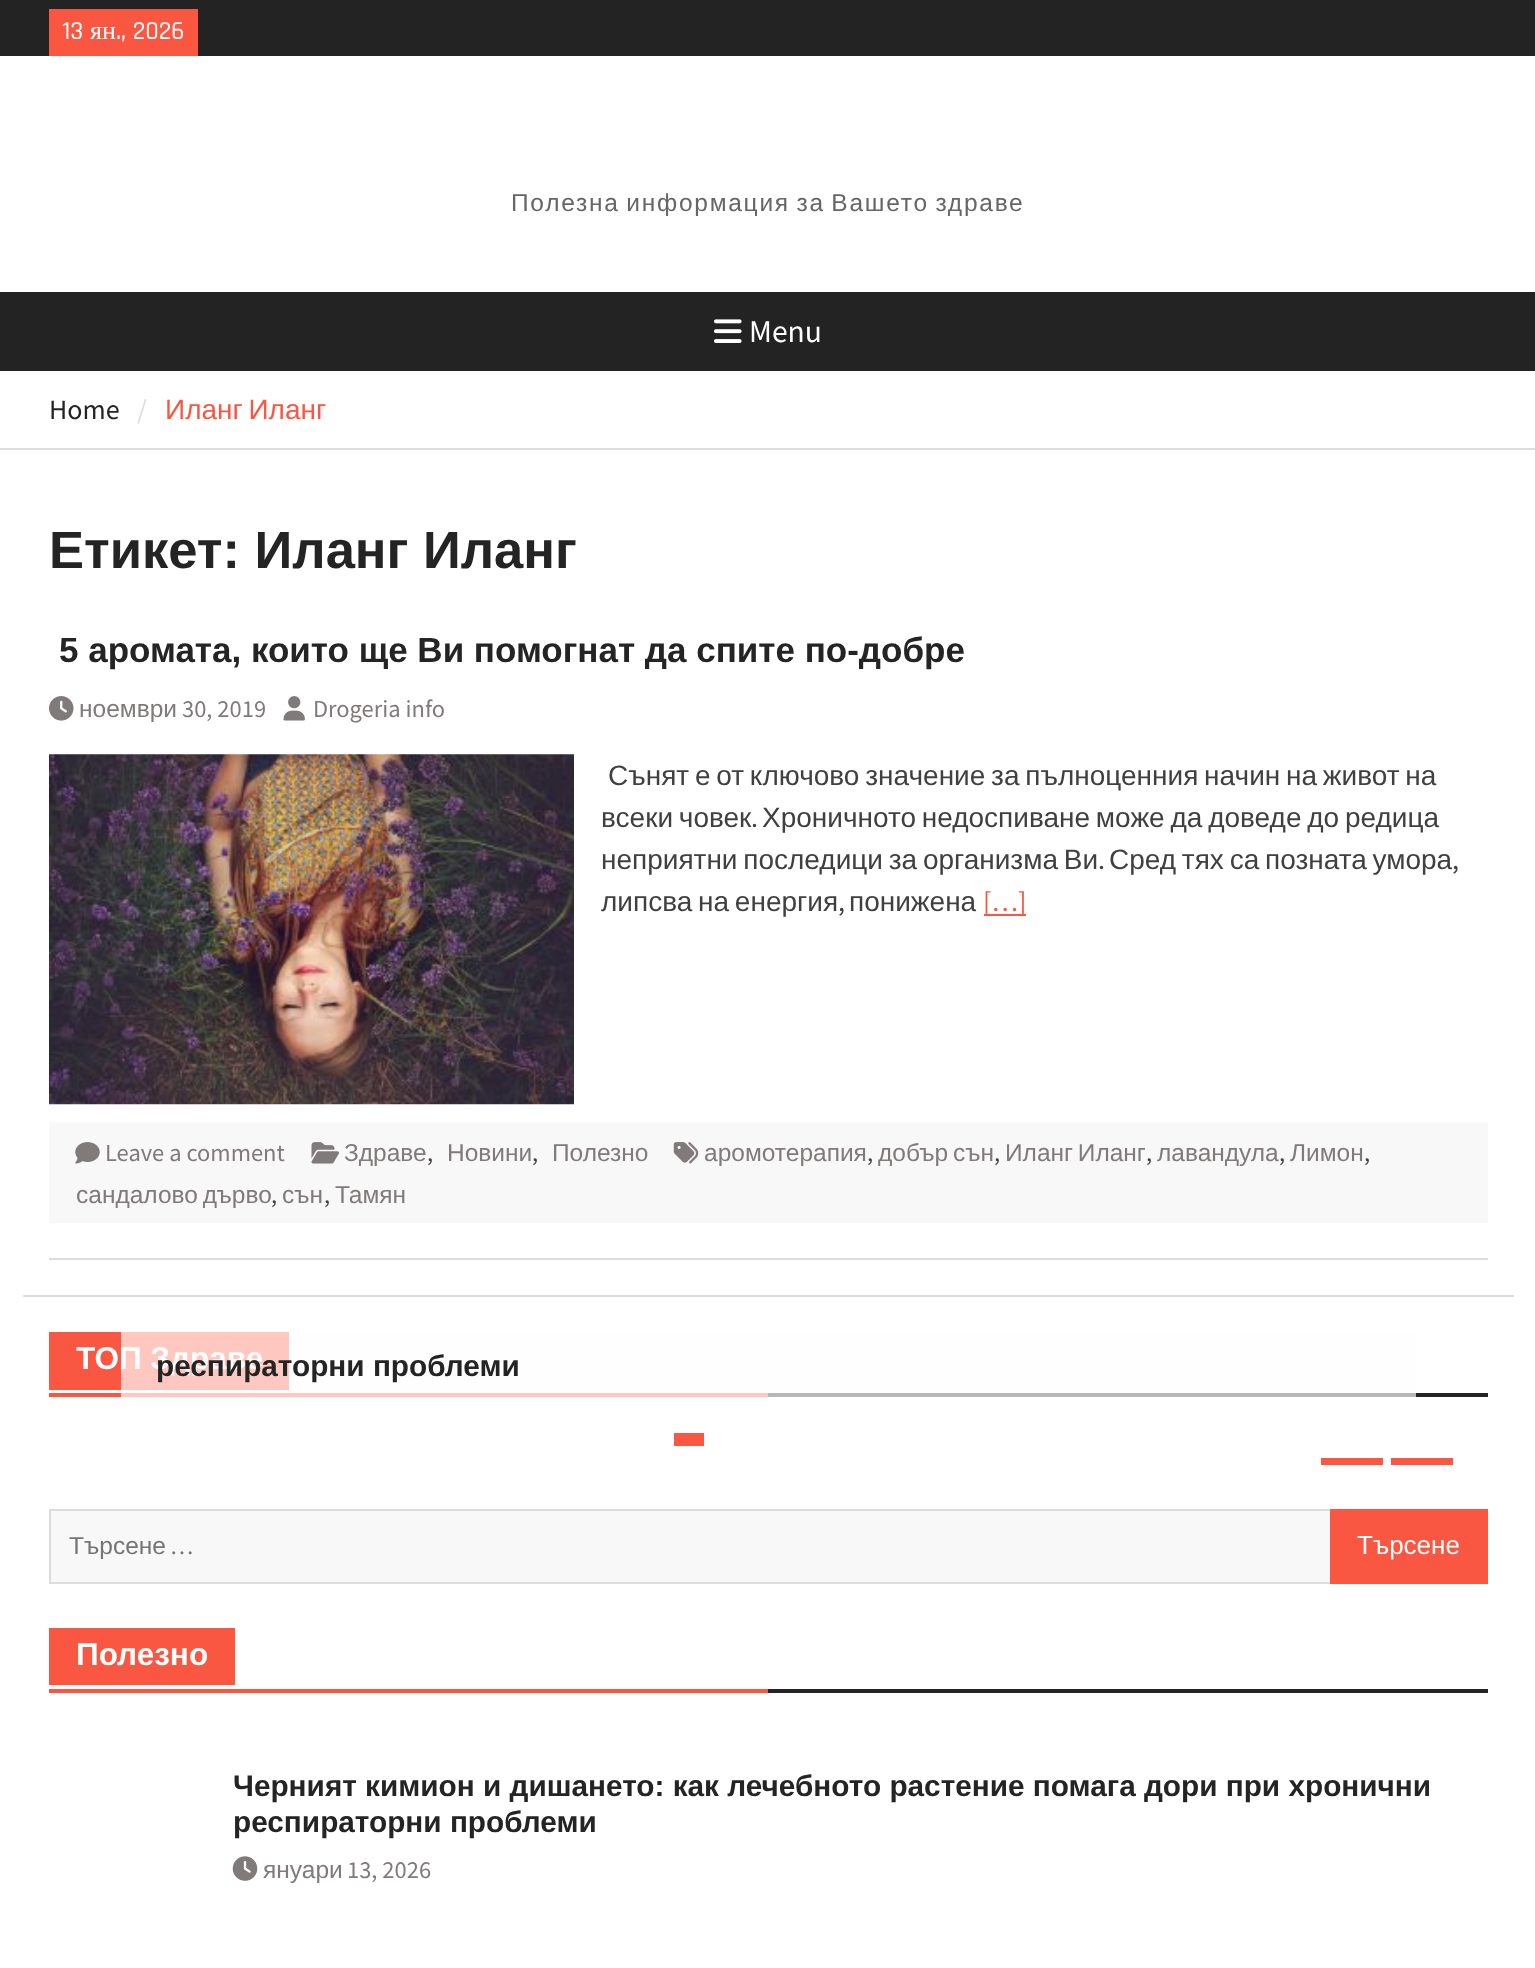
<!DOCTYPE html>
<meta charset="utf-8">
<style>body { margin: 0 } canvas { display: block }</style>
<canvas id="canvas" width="1535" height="1968"></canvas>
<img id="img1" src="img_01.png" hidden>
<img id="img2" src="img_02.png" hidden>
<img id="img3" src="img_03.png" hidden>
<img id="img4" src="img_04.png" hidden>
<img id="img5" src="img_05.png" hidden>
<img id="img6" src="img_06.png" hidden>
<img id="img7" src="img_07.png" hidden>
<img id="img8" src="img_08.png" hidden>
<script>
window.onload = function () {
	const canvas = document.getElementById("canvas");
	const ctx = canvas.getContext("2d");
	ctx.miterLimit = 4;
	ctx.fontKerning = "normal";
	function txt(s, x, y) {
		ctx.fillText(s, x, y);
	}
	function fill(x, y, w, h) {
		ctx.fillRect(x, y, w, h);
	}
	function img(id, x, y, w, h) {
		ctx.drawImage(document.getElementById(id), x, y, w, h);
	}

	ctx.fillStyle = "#FFFFFF";
	fill(0, 0, 1535, 1968);
	ctx.fillStyle = "#232323";
	fill(0, 0, 1535, 56);
	ctx.fillStyle = "#FA5742";
	fill(49, 9, 149, 47);
	ctx.fillStyle = "#232323";
	fill(0, 292, 1535, 79);
	img("img1", 714, 319, 28, 24);
	ctx.fillStyle = "#DDDDDD";
	fill(0, 448, 1535, 2);
	fill(23, 1295, 1491, 2);
	fill(49, 1258, 1439, 2);
	img("img2", 49, 696, 25, 25);
	img("img3", 283, 696, 22, 25);
	img("img4", 49, 754, 525, 351);
	ctx.fillStyle = "#FA5742";
	fill(984, 914, 42, 2);
	ctx.fillStyle = "#F9F8F8";
	fill(49, 1122, 1439, 101);
	img("img5", 673, 1142, 26, 22);
	img("img6", 75, 1142, 25, 22);
	img("img7", 311, 1142, 28, 22);
	ctx.fillStyle = "#242424";
	fill(768, 1393, 720, 4);
	ctx.fillStyle = "#FA5742";
	fill(49, 1332, 240, 58);
	fill(49, 1393, 719, 4);
	fill(674, 1433, 30, 13);
	fill(1321, 1458, 62, 7);
	fill(1391, 1458, 62, 7);
	ctx.fillStyle = "#F8F8F8";
	fill(51, 1511, 1279, 71);
	ctx.strokeStyle = "#DDDDDD";
	ctx.lineWidth = 2;
	ctx.strokeRect(50, 1510, 1437, 73);
	ctx.fillStyle = "#FA5742";
	fill(1330, 1509, 158, 75);
	ctx.fillStyle = "#242424";
	fill(768, 1689, 720, 4);
	ctx.fillStyle = "#FA5742";
	fill(49, 1628, 186, 57);
	fill(49, 1689, 719, 4);
	img("img8", 232, 1856, 26, 25);
	ctx.font = "500 26px Rajdhani";
	ctx.fillStyle = "#FFFFFF";
	txt("13", 62, 39);
	ctx.font = "26px Liberation Serif";
	txt("ян", 90, 39);
	ctx.font = "500 26px Rajdhani";
	txt("., 2026", 116, 39);
	ctx.letterSpacing = "1.75px";
	ctx.wordSpacing = "-2px";
	ctx.font = "24.5px Liberation Sans";
	ctx.fillStyle = "#666666";
	txt("Полезна информация за Вашето здраве", 511, 211);
	ctx.letterSpacing = "0px";
	ctx.wordSpacing = "0px";
	ctx.font = "31.5px Source Sans Pro";
	ctx.fillStyle = "#FFFFFF";
	txt("Menu", 749, 342);
	ctx.font = "28px Source Sans Pro";
	ctx.fillStyle = "#242424";
	txt("Home", 49, 419);
	ctx.fillStyle = "#DDDDDD";
	txt("/", 137, 419);
	ctx.wordSpacing = "-2px";
	ctx.font = "28px Liberation Sans";
	ctx.fillStyle = "#FA5742";
	txt("Иланг Иланг", 165, 419);
	ctx.wordSpacing = "0px";
	ctx.font = "bold 52.5px Liberation Sans";
	ctx.fillStyle = "#242424";
	txt("Етикет: Иланг Иланг", 49, 568);
	ctx.font = "bold 35px Liberation Sans";
	txt("5 аромата, които ще Ви помогнат да спите по-добре", 59, 662);
	ctx.font = "24.5px Liberation Sans";
	ctx.fillStyle = "#807A7A";
	txt("ноември", 79, 717);
	ctx.font = "24.5px Source Sans Pro";
	txt("30, 2019", 182, 717);
	txt("Drogeria info", 313, 717);
	ctx.wordSpacing = "-2px";
	ctx.font = "28px Liberation Sans";
	ctx.fillStyle = "#404040";
	txt("Сънят е от ключово значение за пълноценния начин на живот на", 608, 785);
	txt("всеки човек", 601, 827);
	ctx.wordSpacing = "0px";
	ctx.font = "28px Source Sans Pro";
	txt(".", 751, 827);
	ctx.wordSpacing = "-2px";
	ctx.font = "28px Liberation Sans";
	txt("Хроничното недоспиване може да доведе до редица", 762, 827);
	txt("неприятни последици за организма Ви", 601, 869);
	ctx.wordSpacing = "0px";
	ctx.font = "28px Source Sans Pro";
	txt(".", 1098, 869);
	ctx.wordSpacing = "-2px";
	ctx.font = "28px Liberation Sans";
	txt("Сред тях са позната умора", 1109, 869);
	ctx.wordSpacing = "0px";
	ctx.font = "28px Source Sans Pro";
	txt(",", 1452, 869);
	ctx.wordSpacing = "-2px";
	ctx.font = "28px Liberation Sans";
	txt("липсва на енергия", 601, 911);
	ctx.wordSpacing = "0px";
	ctx.font = "28px Source Sans Pro";
	txt(",", 838, 911);
	ctx.font = "28px Liberation Sans";
	txt("понижена", 849, 911);
	ctx.font = "28px Source Sans Pro";
	ctx.fillStyle = "#FA5742";
	txt("[…]", 983, 911);
	ctx.font = "24.5px Liberation Sans";
	ctx.fillStyle = "#807A7A";
	txt("аромотерапия", 704, 1161);
	ctx.font = "24.5px Source Sans Pro";
	ctx.fillStyle = "#404040";
	txt(",", 867, 1161);
	ctx.wordSpacing = "-2px";
	ctx.font = "24.5px Liberation Sans";
	ctx.fillStyle = "#807A7A";
	txt("добър сън", 878, 1161);
	ctx.wordSpacing = "0px";
	ctx.font = "24.5px Source Sans Pro";
	ctx.fillStyle = "#404040";
	txt(",", 994, 1161);
	ctx.wordSpacing = "-2px";
	ctx.font = "24.5px Liberation Sans";
	ctx.fillStyle = "#807A7A";
	txt("Иланг Иланг", 1005, 1161);
	ctx.wordSpacing = "0px";
	ctx.font = "24.5px Source Sans Pro";
	ctx.fillStyle = "#404040";
	txt(",", 1146, 1161);
	ctx.font = "24.5px Liberation Sans";
	ctx.fillStyle = "#807A7A";
	txt("лавандула", 1157, 1161);
	ctx.font = "24.5px Source Sans Pro";
	ctx.fillStyle = "#404040";
	txt(",", 1279, 1161);
	ctx.font = "24.5px Liberation Sans";
	ctx.fillStyle = "#807A7A";
	txt("Лимон", 1290, 1161);
	ctx.font = "24.5px Source Sans Pro";
	ctx.fillStyle = "#404040";
	txt(",", 1364, 1161);
	ctx.wordSpacing = "-2px";
	ctx.font = "24.5px Liberation Sans";
	ctx.fillStyle = "#807A7A";
	txt("сандалово дърво", 76, 1203);
	ctx.wordSpacing = "0px";
	ctx.font = "24.5px Source Sans Pro";
	ctx.fillStyle = "#404040";
	txt(",", 271, 1203);
	ctx.font = "24.5px Liberation Sans";
	ctx.fillStyle = "#807A7A";
	txt("сън", 282, 1203);
	ctx.font = "24.5px Source Sans Pro";
	ctx.fillStyle = "#404040";
	txt(",", 324, 1203);
	ctx.font = "24.5px Liberation Sans";
	ctx.fillStyle = "#807A7A";
	txt("Тамян", 335, 1203);
	ctx.font = "24.5px Source Sans Pro";
	txt("Leave a comment", 105, 1161);
	ctx.font = "24.5px Liberation Sans";
	txt("Здраве", 344, 1161);
	ctx.font = "24.5px Source Sans Pro";
	ctx.fillStyle = "#404040";
	txt(",", 427, 1161);
	ctx.font = "24.5px Liberation Sans";
	ctx.fillStyle = "#807A7A";
	txt("Новини", 447, 1161);
	ctx.font = "24.5px Source Sans Pro";
	ctx.fillStyle = "#404040";
	txt(",", 532, 1161);
	ctx.font = "24.5px Liberation Sans";
	ctx.fillStyle = "#807A7A";
	txt("Полезно", 552, 1161);
	ctx.font = "bold 31.5px Liberation Sans";
	ctx.fillStyle = "#FFFFFF";
	txt("ТОП Здраве", 76, 1369);
	ctx.fillStyle = "rgba(255, 254, 254, 0.68)";
	fill(121, 1332, 1295, 65);
	ctx.font = "bold 29.75px Liberation Sans";
	ctx.fillStyle = "#242424";
	txt("респираторни проблеми", 156, 1376);
	ctx.font = "24.5px Liberation Sans";
	ctx.fillStyle = "#757575";
	txt("Търсене", 69, 1554);
	ctx.font = "24.5px Source Sans Pro";
	txt("…", 170, 1554);
	ctx.font = "26px Liberation Sans";
	ctx.fillStyle = "#FFFFFF";
	txt("Търсене", 1357, 1554);
	ctx.font = "bold 31.5px Liberation Sans";
	txt("Полезно", 76, 1665);
	ctx.font = "bold 29.75px Liberation Sans";
	ctx.fillStyle = "#242424";
	txt("Черният кимион и дишането: как лечебното растение помага дори при хронични", 233, 1796);
	txt("респираторни проблеми", 233, 1832);
	ctx.font = "24.5px Liberation Sans";
	ctx.fillStyle = "#807A7A";
	txt("януари", 263, 1878);
	ctx.font = "24.5px Source Sans Pro";
	txt("13, 2026", 347, 1878);
};
</script>
